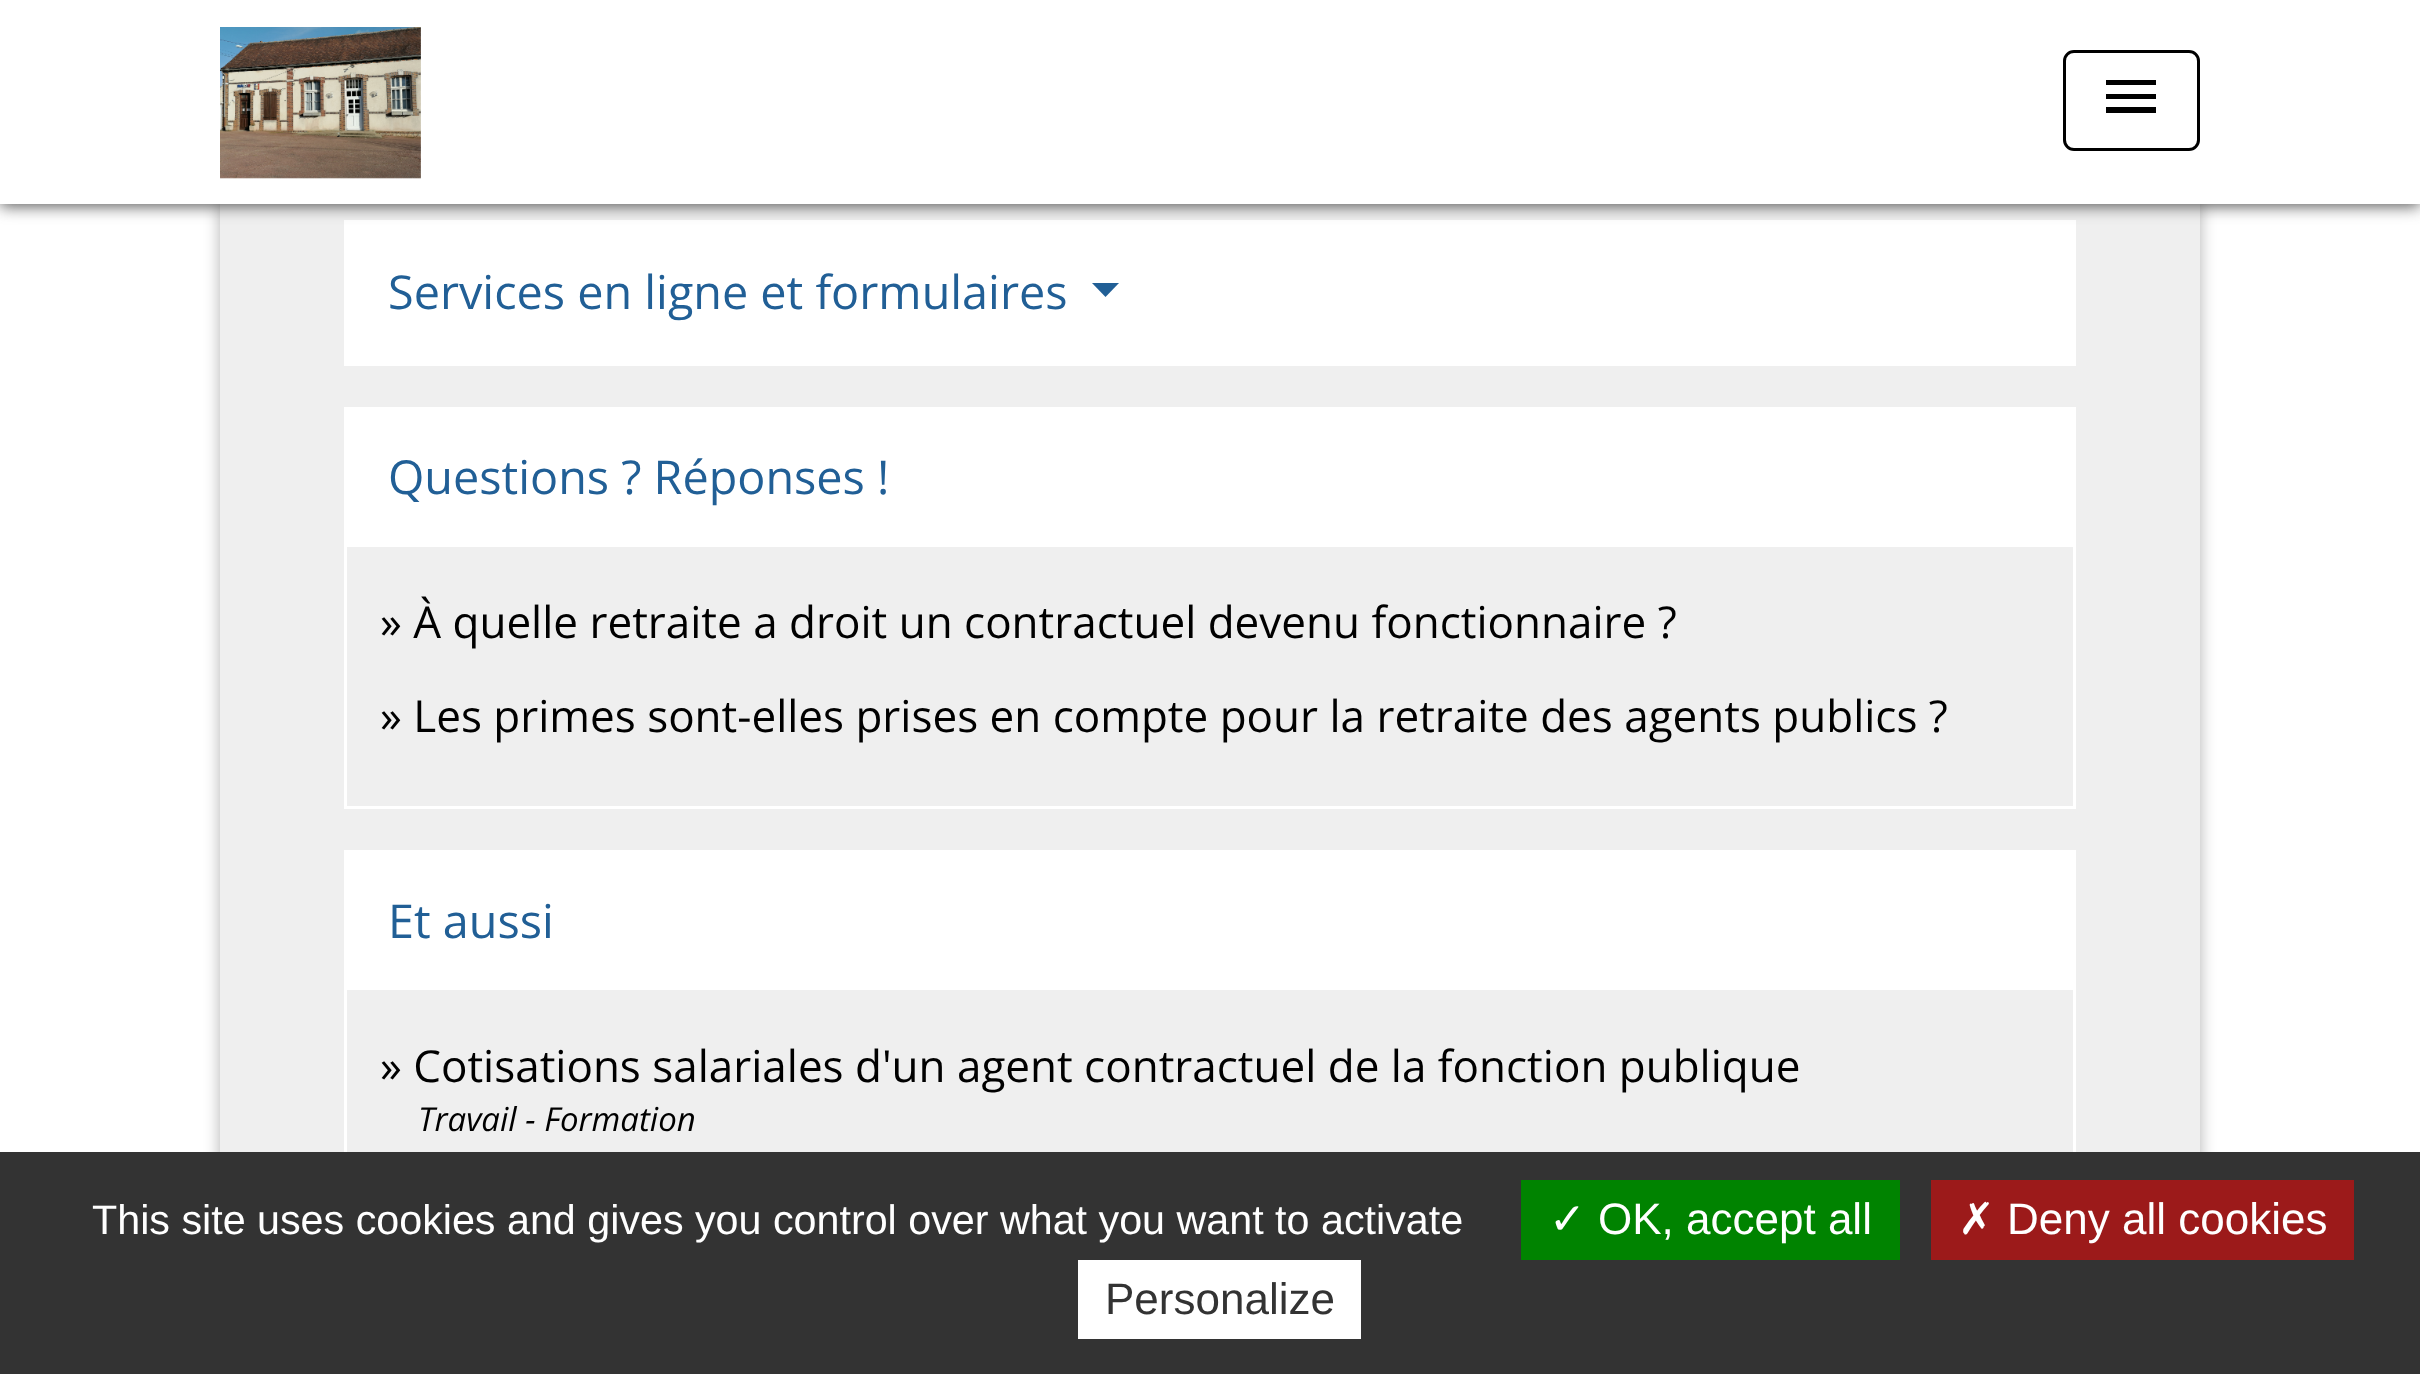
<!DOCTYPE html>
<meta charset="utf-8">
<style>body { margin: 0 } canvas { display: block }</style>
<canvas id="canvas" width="2420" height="1374"></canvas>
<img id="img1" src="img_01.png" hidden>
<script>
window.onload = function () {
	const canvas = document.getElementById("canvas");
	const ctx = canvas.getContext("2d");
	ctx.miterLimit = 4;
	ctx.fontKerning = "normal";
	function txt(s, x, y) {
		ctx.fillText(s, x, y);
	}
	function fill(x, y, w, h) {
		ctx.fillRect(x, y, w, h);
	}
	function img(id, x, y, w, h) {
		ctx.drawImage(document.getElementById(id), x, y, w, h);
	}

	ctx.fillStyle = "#FFFFFF";
	fill(0, 0, 2420, 1374);
	ctx.fillStyle = "rgba(0, 0, 0, 0.3)";
	ctx.filter = "blur(8px)";
	ctx.beginPath();
	ctx.rect(220, -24, 1980, 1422);
	ctx.fill();
	ctx.filter = "none";
	ctx.fillStyle = "#EFEFEF";
	fill(220, 204, 1980, 948);
	ctx.strokeStyle = "#FFFFFF";
	ctx.lineWidth = 3;
	ctx.strokeRect(345.5, 221.5, 1729, 143);
	ctx.fillStyle = "#FFFFFF";
	fill(347, 223, 1726, 140);
	ctx.fillStyle = "#535353";
	ctx.filter = "blur(8px)";
	ctx.beginPath();
	ctx.rect(0, 3, 2420, 203);
	ctx.fill();
	ctx.filter = "none";
	ctx.fillStyle = "#FFFFFF";
	fill(0, 0, 2420, 204);
	img("img1", 220, 27, 201, 152);
	ctx.beginPath();
	ctx.roundRect(2064.5, 51.5, 134, 98, 9.5);
	ctx.strokeStyle = "#000000";
	ctx.stroke();
	ctx.fillStyle = "#000000";
	ctx.beginPath();
	ctx.moveTo(2106, 80);
	ctx.lineTo(2156, 80);
	ctx.lineTo(2156, 85);
	ctx.lineTo(2106, 85);
	ctx.closePath();
	ctx.moveTo(2106, 99);
	ctx.lineTo(2106, 94);
	ctx.lineTo(2156, 94);
	ctx.lineTo(2156, 99);
	ctx.closePath();
	ctx.moveTo(2106, 113);
	ctx.lineTo(2106, 107);
	ctx.lineTo(2156, 107);
	ctx.lineTo(2156, 113);
	ctx.closePath();
	ctx.fill();
	ctx.fillStyle = "#215F96";
	ctx.beginPath();
	ctx.moveTo(1092, 283);
	ctx.lineTo(1119, 283);
	ctx.lineTo(1105.5, 297);
	ctx.closePath();
	ctx.fill();
	ctx.strokeStyle = "#FFFFFF";
	ctx.strokeRect(345.5, 408.5, 1729, 399);
	ctx.fillStyle = "#FFFFFF";
	fill(347, 410, 1726, 137);
	ctx.strokeRect(345.5, 851.5, 1729, 352);
	fill(347, 853, 1726, 137);
	ctx.fillStyle = "#333333";
	fill(0, 1152, 2420, 222);
	ctx.fillStyle = "#008300";
	fill(1521, 1180, 379, 80);
	ctx.fillStyle = "#9C1A1A";
	fill(1931, 1180, 423, 80);
	ctx.fillStyle = "#FFFFFF";
	fill(1078, 1260, 283, 79);
	ctx.font = "46.75px Open Sans";
	ctx.fillStyle = "#215F96";
	txt("Services en ligne et formulaires", 388, 309);
	txt("Questions ? Réponses !", 388, 494);
	ctx.font = "44px Open Sans";
	ctx.fillStyle = "#000000";
	txt("» À quelle retraite a droit un contractuel devenu fonctionnaire ?", 380, 638);
	txt("» Les primes sont-elles prises en compte pour la retraite des agents publics ?", 380, 732);
	ctx.font = "46.75px Open Sans";
	ctx.fillStyle = "#215F96";
	txt("Et aussi", 388, 938);
	ctx.font = "44px Open Sans";
	ctx.fillStyle = "#000000";
	txt("» Cotisations salariales d'un agent contractuel de la fonction publique", 380, 1082);
	ctx.font = "italic 33px Open Sans";
	txt("Travail - Formation", 418, 1131);
	ctx.font = "41.25px Liberation Sans";
	ctx.fillStyle = "#FFFFFF";
	txt("This site uses cookies and gives you control over what you want to activate", 92, 1234);
	ctx.font = "44px DejaVu Sans";
	txt("✓", 1549, 1234);
	ctx.font = "44px Liberation Sans";
	txt("OK, accept all", 1598, 1234);
	ctx.font = "44px DejaVu Sans";
	txt("✗", 1958, 1234);
	ctx.font = "44px Liberation Sans";
	txt("Deny all cookies", 2007, 1234);
	ctx.fillStyle = "#333333";
	txt("Personalize", 1105, 1314);
};
</script>
